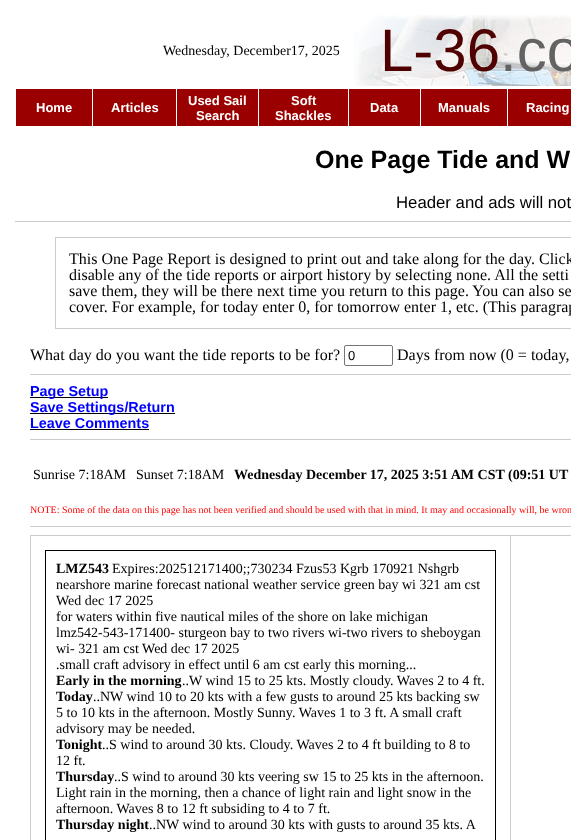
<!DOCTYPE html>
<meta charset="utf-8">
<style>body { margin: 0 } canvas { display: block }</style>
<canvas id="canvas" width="571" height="840"></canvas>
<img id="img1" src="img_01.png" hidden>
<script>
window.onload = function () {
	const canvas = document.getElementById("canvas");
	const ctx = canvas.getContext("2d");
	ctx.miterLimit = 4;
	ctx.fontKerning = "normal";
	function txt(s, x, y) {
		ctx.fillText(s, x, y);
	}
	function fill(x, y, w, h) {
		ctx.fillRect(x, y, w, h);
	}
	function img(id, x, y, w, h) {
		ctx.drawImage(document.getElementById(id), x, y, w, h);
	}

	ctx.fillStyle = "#FFFFFF";
	fill(0, 0, 571, 840);
	img("img1", 354, 15, 217, 71);
	ctx.fillStyle = "#9B0000";
	fill(16, 89, 76, 37);
	fill(93, 89, 83, 37);
	fill(177, 89, 81, 37);
	fill(259, 89, 89, 37);
	fill(349, 89, 71, 37);
	fill(421, 89, 86, 37);
	fill(508, 89, 63, 37);
	ctx.fillStyle = "#CCCCCC";
	fill(15, 221, 556, 1);
	ctx.strokeStyle = "#CCCCCC";
	ctx.strokeRect(55.5, 237.5, 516, 91);
	ctx.beginPath();
	ctx.roundRect(344.5, 345.5, 48, 20, 1.5);
	ctx.strokeStyle = "#767676";
	ctx.stroke();
	fill(30, 374, 541, 1);
	ctx.fillStyle = "#000000";
	fill(30, 397, 78, 1);
	fill(30, 413, 145, 1);
	fill(30, 429, 119, 1);
	ctx.fillStyle = "#CCCCCC";
	fill(30, 439, 541, 1);
	fill(30, 526, 541, 1);
	fill(30, 535, 541, 1);
	fill(30, 535, 1, 305);
	ctx.strokeStyle = "#000000";
	ctx.strokeRect(45.5, 550.5, 450, 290);
	fill(510, 535, 1, 305);
	ctx.font = "14px Liberation Serif";
	ctx.fillStyle = "#000000";
	txt("Wednesday, December17, 2025", 163, 55);
	ctx.font = "60px Liberation Sans";
	ctx.fillStyle = "#4F0000";
	txt("L-36", 380, 71);
	ctx.fillStyle = "#636363";
	txt(".co", 500, 71);
	ctx.font = "bold 13px Liberation Sans";
	ctx.fillStyle = "#FFFFFF";
	txt("Home", 36, 112);
	txt("Articles", 111, 112);
	txt("Used Sail", 188, 105);
	txt("Search", 196, 120);
	txt("Soft", 291, 105);
	txt("Shackles", 275, 120);
	txt("Data", 370, 112);
	txt("Manuals", 438, 112);
	txt("Racing", 526, 112);
	ctx.font = "bold 25px Liberation Sans";
	ctx.fillStyle = "#000000";
	txt("One Page Tide and W", 315, 168);
	ctx.font = "16.75px Liberation Sans";
	txt("Header and ads will not", 396, 208);
	ctx.font = "16px Liberation Serif";
	txt("This One Page Report is designed to print out and take along for the day. Click", 69, 264);
	txt("disable any of the tide reports or airport history by selecting none. All the setti", 69, 280);
	txt("save them, they will be there next time you return to this page. You can also se", 69, 296);
	txt("cover. For example, for today enter 0, for tomorrow enter 1, etc. (This paragrap", 69, 312);
	txt("What day do you want the tide reports to be for?", 30, 360);
	ctx.font = "13px Liberation Sans";
	txt("0", 348, 360);
	ctx.font = "16px Liberation Serif";
	txt("Days from now (0 = today,", 397, 360);
	ctx.font = "bold 14.4px Liberation Sans";
	ctx.fillStyle = "#0000FF";
	txt("Page Setup", 30, 396);
	txt("Save Settings/Return", 30, 412);
	txt("Leave Comments", 30, 428);
	ctx.font = "14px Liberation Serif";
	ctx.fillStyle = "#000000";
	txt("Sunrise 7:18AM", 33, 479);
	txt("Sunset 7:18AM", 136, 479);
	ctx.font = "bold 14px Liberation Serif";
	txt("Wednesday December 17, 2025 3:51 AM CST (09:51 UT", 234, 479);
	ctx.font = "10px Liberation Serif";
	ctx.fillStyle = "#FF0000";
	txt("NOTE: Some of the data on this page has not been verified and should be used with that in mind. It may and occasionally will, be wron", 30, 513);
	ctx.font = "bold 14px Liberation Serif";
	ctx.fillStyle = "#000000";
	txt("LMZ543", 56, 573);
	ctx.font = "14px Liberation Serif";
	txt("Expires:202512171400;;730234 Fzus53 Kgrb 170921 Nshgrb", 112, 573);
	txt("nearshore marine forecast national weather service green bay wi 321 am cst", 56, 589);
	txt("Wed dec 17 2025", 56, 605);
	txt("for waters within five nautical miles of the shore on lake michigan", 56, 621);
	txt("lmz542-543-171400- sturgeon bay to two rivers wi-two rivers to sheboygan", 56, 637);
	txt("wi- 321 am cst Wed dec 17 2025", 56, 653);
	txt(".small craft advisory in effect until 6 am cst early this morning...", 56, 669);
	ctx.font = "bold 14px Liberation Serif";
	txt("Early in the morning", 56, 685);
	ctx.font = "14px Liberation Serif";
	txt("..W wind 15 to 25 kts. Mostly cloudy. Waves 2 to 4 ft.", 182, 685);
	ctx.font = "bold 14px Liberation Serif";
	txt("Today", 56, 701);
	ctx.font = "14px Liberation Serif";
	txt("..NW wind 10 to 20 kts with a few gusts to around 25 kts backing sw", 93, 701);
	txt("5 to 10 kts in the afternoon. Mostly Sunny. Waves 1 to 3 ft. A small craft", 56, 717);
	txt("advisory may be needed.", 56, 733);
	ctx.font = "bold 14px Liberation Serif";
	txt("Tonight", 56, 749);
	ctx.font = "14px Liberation Serif";
	txt("..S wind to around 30 kts. Cloudy. Waves 2 to 4 ft building to 8 to", 102, 749);
	txt("12 ft.", 56, 765);
	ctx.font = "bold 14px Liberation Serif";
	txt("Thursday", 56, 781);
	ctx.font = "14px Liberation Serif";
	txt("..S wind to around 30 kts veering sw 15 to 25 kts in the afternoon.", 114, 781);
	txt("Light rain in the morning, then a chance of light rain and light snow in the", 56, 797);
	txt("afternoon. Waves 8 to 12 ft subsiding to 4 to 7 ft.", 56, 813);
	ctx.font = "bold 14px Liberation Serif";
	txt("Thursday night", 56, 829);
	ctx.font = "14px Liberation Serif";
	txt("..NW wind to around 30 kts with gusts to around 35 kts. A", 149, 829);
};
</script>
